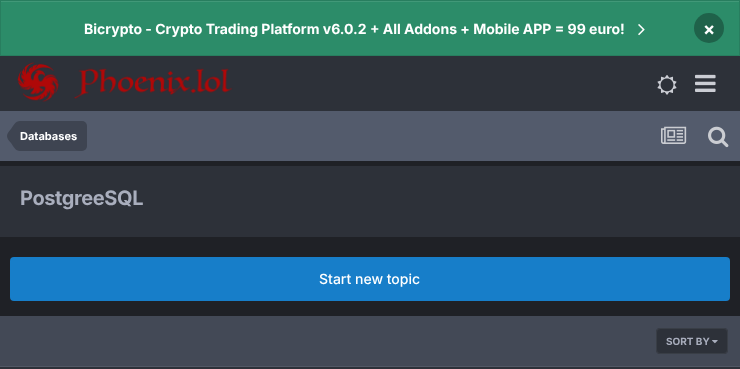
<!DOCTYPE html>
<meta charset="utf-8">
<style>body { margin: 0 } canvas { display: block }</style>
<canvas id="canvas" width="740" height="369"></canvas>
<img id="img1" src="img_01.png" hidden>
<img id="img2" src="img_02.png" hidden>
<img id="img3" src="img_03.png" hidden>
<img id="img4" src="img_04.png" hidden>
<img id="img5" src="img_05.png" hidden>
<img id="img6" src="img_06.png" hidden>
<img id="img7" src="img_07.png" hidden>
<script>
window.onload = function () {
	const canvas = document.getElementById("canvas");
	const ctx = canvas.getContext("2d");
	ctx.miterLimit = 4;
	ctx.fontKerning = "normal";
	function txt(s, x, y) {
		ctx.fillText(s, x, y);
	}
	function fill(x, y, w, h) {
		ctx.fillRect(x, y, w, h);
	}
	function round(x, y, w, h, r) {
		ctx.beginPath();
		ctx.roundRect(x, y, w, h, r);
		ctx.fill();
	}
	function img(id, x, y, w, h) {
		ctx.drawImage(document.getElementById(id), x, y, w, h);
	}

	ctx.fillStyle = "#1F2126";
	fill(0, 0, 740, 369);
	ctx.fillStyle = "#2C8C69";
	fill(1, 2, 738, 53);
	ctx.fillStyle = "#419878";
	fill(1, 1, 738, 1);
	ctx.strokeStyle = "#287E5F";
	ctx.strokeRect(0.5, 0.5, 739, 55);
	img("img1", 638, 24, 7, 12);
	ctx.fillStyle = "#1F624A";
	ctx.beginPath();
	ctx.arc(709, 28, 15, 0, Math.PI * 2);
	ctx.fill();
	ctx.fillStyle = "#2D3139";
	fill(0, 56, 740, 55);
	img("img2", 17, 62, 216, 40);
	img("img3", 657, 75, 20, 20);
	img("img4", 695, 74, 21, 18);
	ctx.fillStyle = "#535B6C";
	fill(0, 111, 740, 50);
	ctx.fillStyle = "#3E4451";
	ctx.beginPath();
	ctx.roundRect(20, 121, 67, 30, [0, 5, 5, 0]);
	ctx.fill();
	ctx.beginPath();
	ctx.moveTo(20, 136);
	ctx.lineTo(20, 151);
	ctx.bezierCurveTo(15.5, 151, 13.5, 146.5, 11, 143);
	ctx.bezierCurveTo(9.5, 141, 7, 139, 7, 136);
	ctx.closePath();
	ctx.moveTo(20, 136);
	ctx.lineTo(7, 136);
	ctx.bezierCurveTo(7, 133, 9.5, 131, 11, 129);
	ctx.bezierCurveTo(13.5, 125.5, 15.5, 121, 20, 121);
	ctx.closePath();
	ctx.fill();
	img("img5", 661, 126, 26, 18);
	img("img6", 708, 126, 21, 22);
	ctx.fillStyle = "#2D3139";
	fill(0, 166, 740, 71);
	ctx.fillStyle = "#177EC9";
	round(10, 257, 720, 44, 4);
	ctx.fillStyle = "#2D3139";
	fill(0, 367, 740, 2);
	ctx.fillStyle = "#434956";
	fill(0, 316, 740, 50);
	ctx.fillStyle = "#525865";
	fill(0, 366, 740, 1);
	ctx.fillStyle = "#2D3139";
	round(656, 328, 72, 26, 4);
	img("img7", 712, 340, 6, 4);
	ctx.beginPath();
	ctx.roundRect(656.5, 328.5, 71, 25, 3.5);
	ctx.strokeStyle = "rgba(169, 174, 189, 0.1)";
	ctx.stroke();
	ctx.font = "bold 14px Inter";
	ctx.fillStyle = "#FFFFFF";
	txt("Bicrypto - Crypto Trading Platform v6.0.2 + All Addons + Mobile APP = 99 euro!", 84, 34);
	ctx.font = "bold 18px Inter";
	txt("×", 703, 35);
	ctx.font = "bold 11px Inter";
	txt("Databases", 20, 140);
	ctx.letterSpacing = "-0.4px";
	ctx.font = "bold 20px Inter";
	ctx.fillStyle = "#A9AEBD";
	txt("PostgreeSQL", 20, 205);
	ctx.letterSpacing = "0px";
	ctx.font = "500 14px Inter";
	ctx.fillStyle = "#FFFFFF";
	txt("Start new topic", 319, 284);
	ctx.font = "bold 10px Inter";
	ctx.fillStyle = "#A9AEBD";
	txt("SORT BY", 666, 345);
};
</script>
